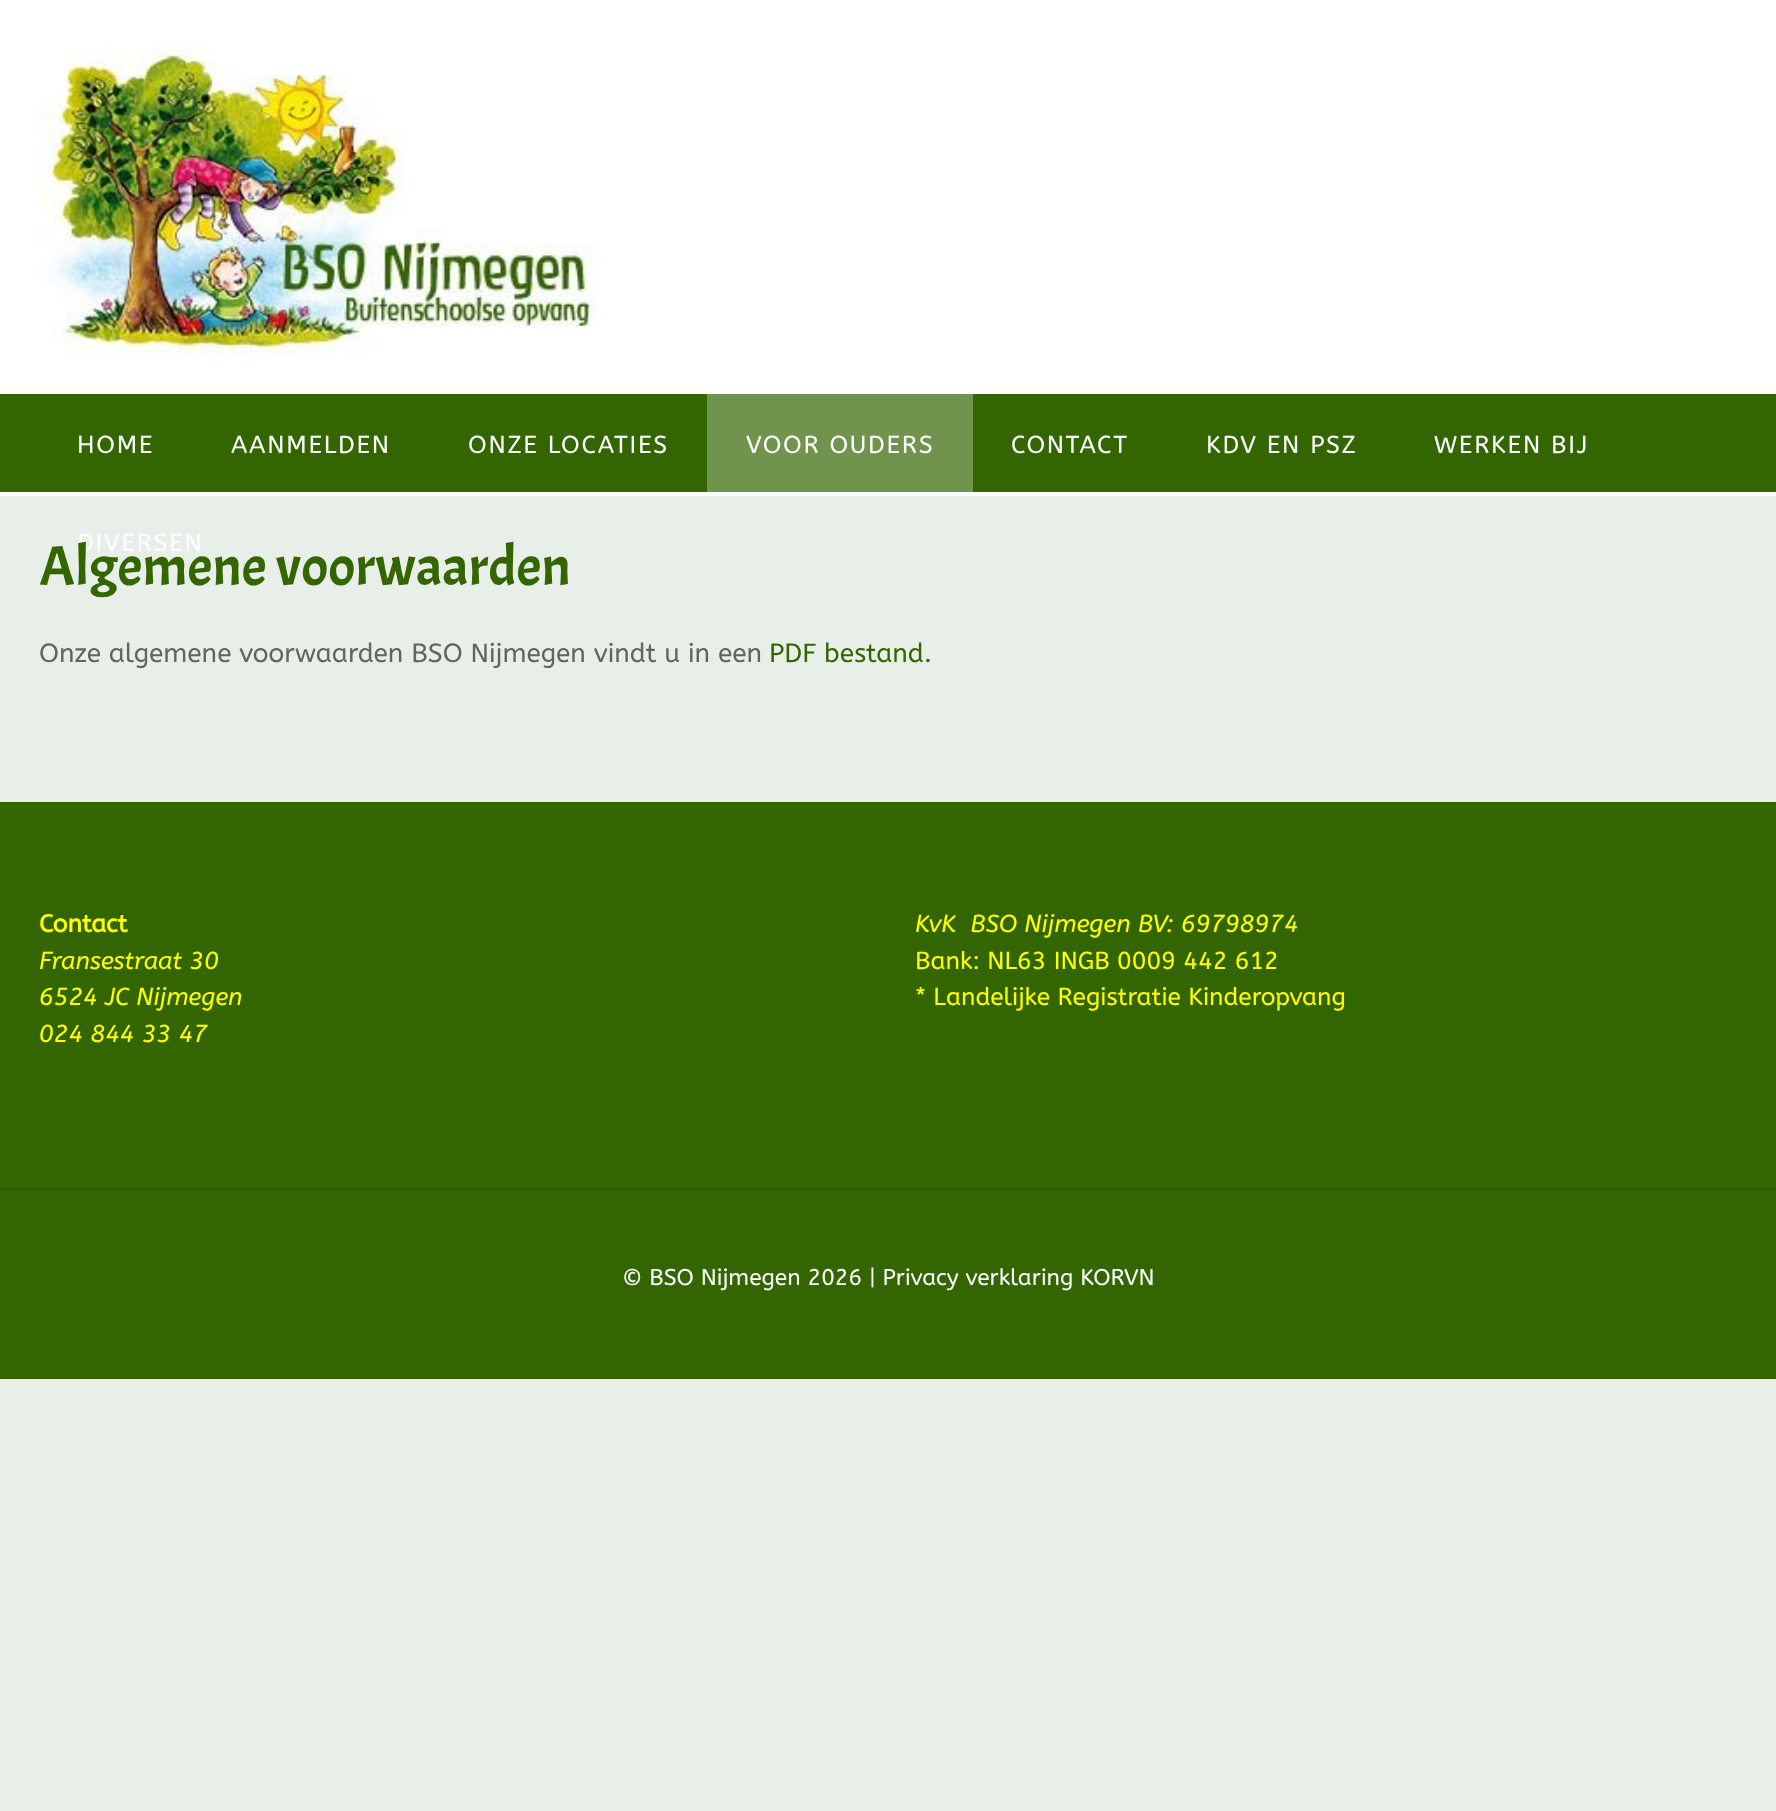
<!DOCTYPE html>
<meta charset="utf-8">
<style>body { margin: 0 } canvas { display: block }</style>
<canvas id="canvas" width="1776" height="1811"></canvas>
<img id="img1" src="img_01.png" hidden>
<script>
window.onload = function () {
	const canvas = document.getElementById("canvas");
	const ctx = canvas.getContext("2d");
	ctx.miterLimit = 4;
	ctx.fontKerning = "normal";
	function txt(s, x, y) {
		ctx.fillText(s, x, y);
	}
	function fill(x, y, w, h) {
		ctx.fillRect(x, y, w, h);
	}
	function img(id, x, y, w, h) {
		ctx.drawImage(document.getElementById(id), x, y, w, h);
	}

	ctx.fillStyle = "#E8EFE8";
	fill(0, 0, 1776, 1811);
	ctx.fillStyle = "#FFFFFF";
	fill(0, 0, 1776, 394);
	img("img1", 38, 47, 559, 307);
	ctx.fillStyle = "#336600";
	fill(0, 394, 1776, 98);
	ctx.fillStyle = "#FFFFFF";
	fill(0, 492, 1776, 4);
	ctx.fillStyle = "#70944D";
	fill(707, 394, 266, 98);
	ctx.fillStyle = "#336600";
	fill(0, 802, 1776, 577);
	ctx.fillStyle = "#2F5E00";
	fill(0, 1188, 1776, 2);
	ctx.letterSpacing = "1.75px";
	ctx.font = "24.5px ABeeZee";
	ctx.fillStyle = "#FFFFFF";
	txt("HOME", 77, 453);
	txt("AANMELDEN", 231, 453);
	txt("ONZE LOCATIES", 468, 453);
	txt("VOOR OUDERS", 746, 453);
	txt("CONTACT", 1011, 453);
	txt("KDV EN PSZ", 1206, 453);
	txt("WERKEN BIJ", 1434, 453);
	txt("DIVERSEN", 77, 551);
	ctx.letterSpacing = "0px";
	ctx.font = "56px Acme";
	ctx.fillStyle = "#336600";
	txt("Algemene voorwaarden", 39, 585);
	ctx.font = "26.25px ABeeZee";
	ctx.fillStyle = "#61665C";
	txt("Onze algemene voorwaarden BSO Nijmegen vindt u in een", 39, 662);
	ctx.fillStyle = "#336600";
	txt("PDF bestand.", 769, 662);
	ctx.font = "bold 24.5px ABeeZee";
	ctx.fillStyle = "#FFFF00";
	txt("Contact", 39, 932);
	ctx.font = "italic 24.5px ABeeZee";
	txt("Fransestraat 30", 39, 969);
	txt("6524 JC Nijmegen", 39, 1005);
	txt("024 844 33 47", 39, 1042);
	txt("KvK  BSO Nijmegen BV: 69798974", 915, 932);
	ctx.font = "24.5px ABeeZee";
	txt("Bank: NL63 INGB 0009 442 612", 915, 969);
	txt("* Landelijke Registratie Kinderopvang", 915, 1005);
	ctx.font = "22.75px ABeeZee";
	ctx.fillStyle = "#FFFFFF";
	txt("© BSO Nijmegen 2026 | Privacy verklaring KORVN", 622, 1285);
};
</script>
